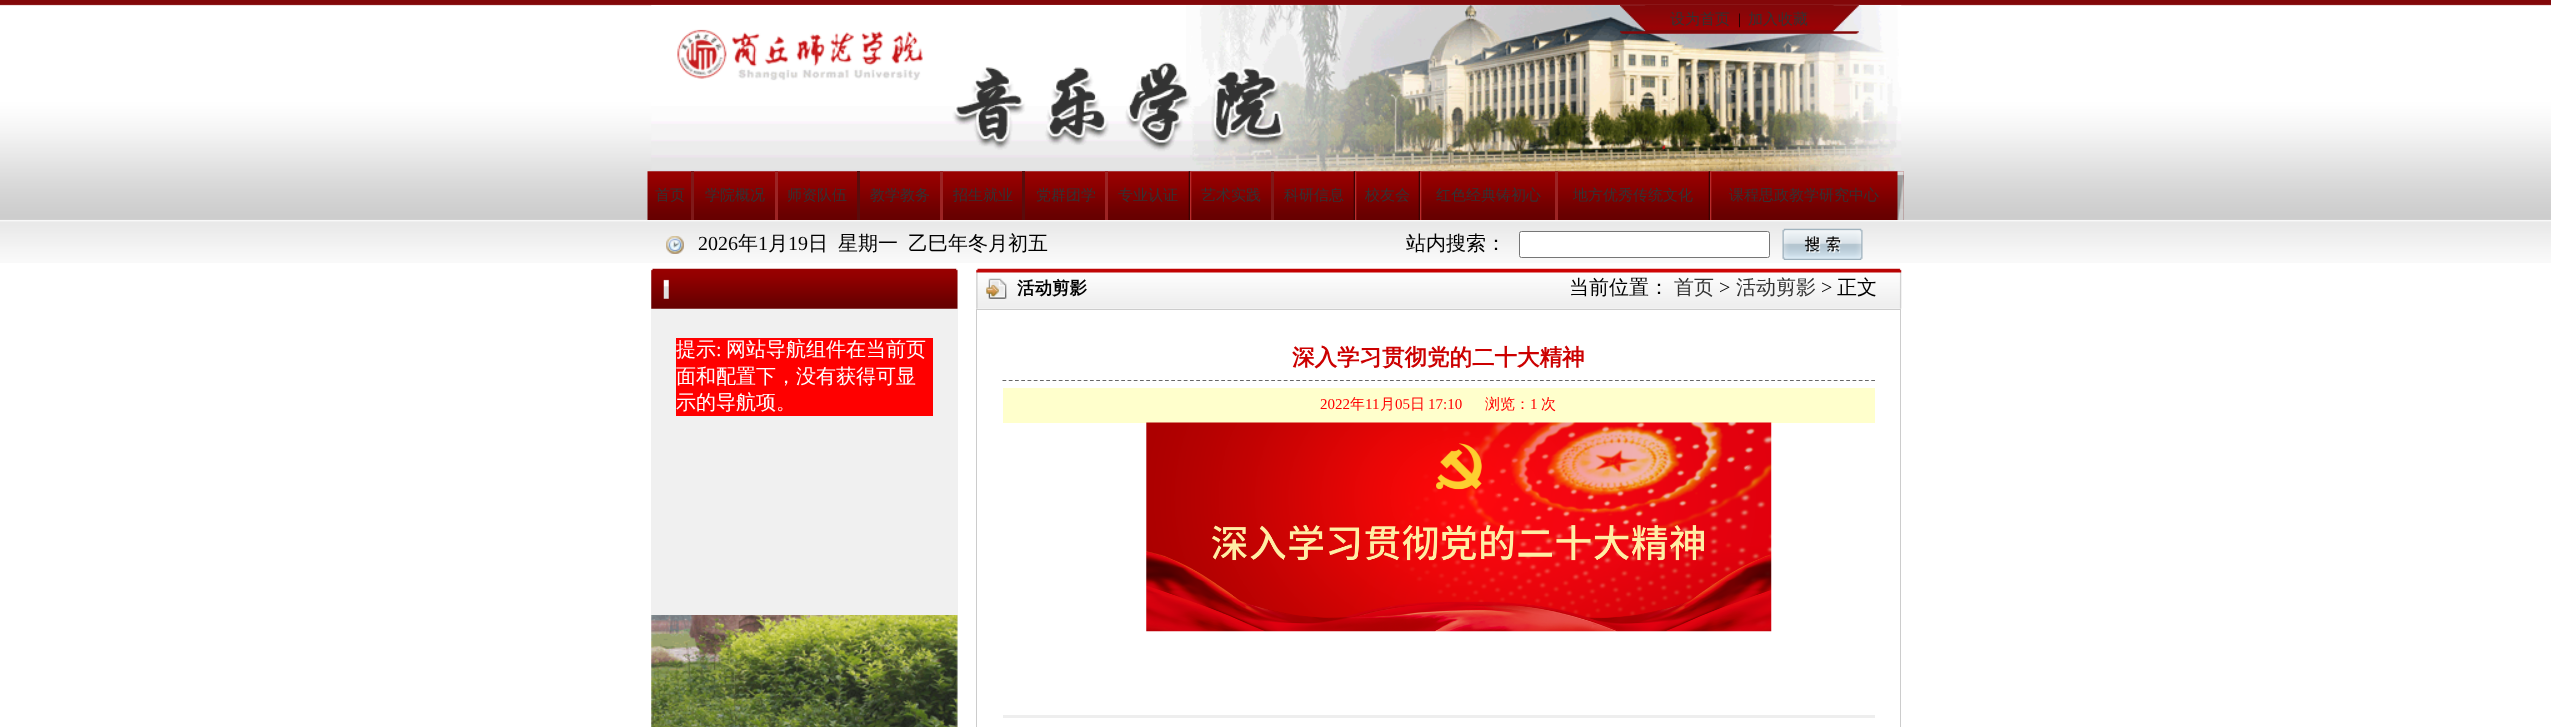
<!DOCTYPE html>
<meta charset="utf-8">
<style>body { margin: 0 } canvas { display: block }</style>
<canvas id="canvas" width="2551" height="727"></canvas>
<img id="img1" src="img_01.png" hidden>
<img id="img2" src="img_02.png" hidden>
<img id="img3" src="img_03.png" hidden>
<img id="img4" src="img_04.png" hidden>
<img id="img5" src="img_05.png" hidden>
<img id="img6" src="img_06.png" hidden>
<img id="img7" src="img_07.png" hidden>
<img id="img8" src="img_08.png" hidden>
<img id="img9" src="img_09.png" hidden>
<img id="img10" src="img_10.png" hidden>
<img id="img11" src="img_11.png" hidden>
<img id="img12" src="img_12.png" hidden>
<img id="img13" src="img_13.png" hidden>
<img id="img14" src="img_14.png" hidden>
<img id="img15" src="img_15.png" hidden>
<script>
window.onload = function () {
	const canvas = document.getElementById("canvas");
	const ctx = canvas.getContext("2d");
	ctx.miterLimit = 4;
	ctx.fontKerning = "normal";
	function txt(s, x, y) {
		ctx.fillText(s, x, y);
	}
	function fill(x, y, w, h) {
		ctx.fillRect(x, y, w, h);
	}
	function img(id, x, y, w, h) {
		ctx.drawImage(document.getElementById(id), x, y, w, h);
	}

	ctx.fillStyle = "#FFFFFF";
	fill(0, 0, 2551, 727);
	img("img1", 0, 0, 2551, 263);
	img("img2", 651, 5, 1251, 167);
	img("img3", 1620, 5, 239, 29);
	img("img4", 647, 171, 1257, 49);
	ctx.fillStyle = "#7F1919";
	fill(691, 171, 3, 49);
	ctx.fillStyle = "#9C2323";
	fill(775, 171, 3, 49);
	ctx.fillStyle = "#590C0C";
	fill(857, 171, 3, 49);
	ctx.fillStyle = "#9C2323";
	fill(940, 171, 3, 49);
	ctx.fillStyle = "#590C0C";
	fill(1022, 171, 3, 49);
	ctx.fillStyle = "#9C2323";
	fill(1105, 171, 3, 49);
	img("img5", 1188, 171, 4, 49);
	ctx.fillStyle = "#7F1919";
	fill(1271, 171, 3, 49);
	img("img6", 1353, 171, 4, 49);
	img("img7", 1418, 171, 4, 49);
	ctx.fillStyle = "#9C2323";
	fill(1555, 171, 3, 49);
	img("img8", 1708, 171, 4, 49);
	img("img9", 1897, 171, 7, 49);
	img("img10", 666, 236, 18, 18);
	ctx.fillStyle = "#FFFFFF";
	ctx.beginPath();
	ctx.roundRect(1519.5, 231.5, 250, 26, 2);
	ctx.fill();
	ctx.strokeStyle = "#767676";
	ctx.stroke();
	img("img11", 1782, 228, 81, 32);
	ctx.fillStyle = "#F0F0F0";
	fill(651, 269, 307, 458);
	img("img12", 651, 615, 307, 112);
	img("img13", 651, 268, 307, 41);
	ctx.fillStyle = "#FF0000";
	fill(676, 338, 257, 78);
	img("img14", 976, 268, 926, 41);
	ctx.strokeStyle = "#CCCCCC";
	ctx.strokeRect(976.5, 309.5, 924, 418);
	ctx.beginPath();
	ctx.moveTo(1002.5, 380.5);
	ctx.lineTo(1875, 380.5);
	ctx.strokeStyle = "#666666";
	ctx.lineWidth = 1.2;
	ctx.setLineDash([3.75, 2.5]);
	ctx.stroke();
	ctx.fillStyle = "#FFFFCC";
	fill(1003, 388, 872, 35);
	img("img15", 1146, 422, 626, 210);
	ctx.fillStyle = "#EEEEEE";
	fill(1003, 715, 872, 3);
	ctx.font = "500 15px WenQuanYi Zen Hei";
	ctx.fillStyle = "#333333";
	txt("设为首页", 1670, 24);
	ctx.font = "15px Liberation Serif";
	ctx.fillStyle = "#000000";
	txt("|", 1738, 24);
	ctx.font = "500 15px WenQuanYi Zen Hei";
	ctx.fillStyle = "#333333";
	txt("加入收藏", 1748, 24);
	txt("首页", 655, 200);
	txt("学院概况", 705, 200);
	txt("师资队伍", 787, 200);
	txt("教学教务", 870, 200);
	txt("招生就业", 953, 200);
	txt("党群团学", 1036, 200);
	txt("专业认证", 1118, 200);
	txt("艺术实践", 1201, 200);
	txt("科研信息", 1284, 200);
	txt("校友会", 1365, 200);
	txt("红色经典铸初心", 1436, 200);
	txt("地方优秀传统文化", 1573, 200);
	txt("课程思政教学研究中心", 1729, 200);
	ctx.font = "20px Liberation Serif";
	ctx.fillStyle = "#000000";
	txt("2026", 698, 250);
	ctx.font = "500 20px WenQuanYi Zen Hei";
	txt("年", 738, 250);
	ctx.font = "20px Liberation Serif";
	txt("1", 758, 250);
	ctx.font = "500 20px WenQuanYi Zen Hei";
	txt("月", 768, 250);
	ctx.font = "20px Liberation Serif";
	txt("19", 788, 250);
	ctx.font = "500 20px WenQuanYi Zen Hei";
	txt("日", 808, 250);
	txt("星期一", 838, 250);
	txt("乙巳年冬月初五", 908, 250);
	txt("站内搜索：", 1406, 250);
	ctx.fillStyle = "#FFFFFF";
	txt("提示", 676, 356);
	ctx.font = "20px Liberation Serif";
	txt(":", 716, 356);
	ctx.font = "500 20px WenQuanYi Zen Hei";
	txt("网站导航组件在当前页", 726, 356);
	txt("面和配置下，没有获得可显", 676, 383);
	txt("示的导航项。", 676, 409);
	ctx.font = "bold 17.5px WenQuanYi Zen Hei";
	ctx.fillStyle = "#000000";
	txt("活动剪影", 1017, 294);
	ctx.font = "500 20px WenQuanYi Zen Hei";
	txt("当前位置：", 1569, 294);
	ctx.fillStyle = "#333333";
	txt("首页", 1674, 294);
	ctx.font = "20px Liberation Serif";
	ctx.fillStyle = "#000000";
	txt(">", 1719, 294);
	ctx.font = "500 20px WenQuanYi Zen Hei";
	ctx.fillStyle = "#333333";
	txt("活动剪影", 1736, 294);
	ctx.font = "20px Liberation Serif";
	ctx.fillStyle = "#000000";
	txt(">", 1821, 294);
	ctx.font = "500 20px WenQuanYi Zen Hei";
	txt("正文", 1837, 294);
	ctx.font = "bold 22.5px WenQuanYi Zen Hei";
	ctx.fillStyle = "#CC0000";
	txt("深入学习贯彻党的二十大精神", 1292, 365);
	ctx.font = "15px Liberation Serif";
	ctx.fillStyle = "#FF0000";
	txt("2022", 1320, 409);
	ctx.font = "500 15px WenQuanYi Zen Hei";
	txt("年", 1350, 409);
	ctx.font = "15px Liberation Serif";
	txt("11", 1365, 409);
	ctx.font = "500 15px WenQuanYi Zen Hei";
	txt("月", 1380, 409);
	ctx.font = "15px Liberation Serif";
	txt("05", 1395, 409);
	ctx.font = "500 15px WenQuanYi Zen Hei";
	txt("日", 1410, 409);
	ctx.font = "15px Liberation Serif";
	txt("17:10", 1428, 409);
	ctx.font = "500 15px WenQuanYi Zen Hei";
	txt("浏览：", 1485, 409);
	ctx.font = "15px Liberation Serif";
	txt("1", 1530, 409);
	ctx.font = "500 15px WenQuanYi Zen Hei";
	txt("次", 1541, 409);
};
</script>
